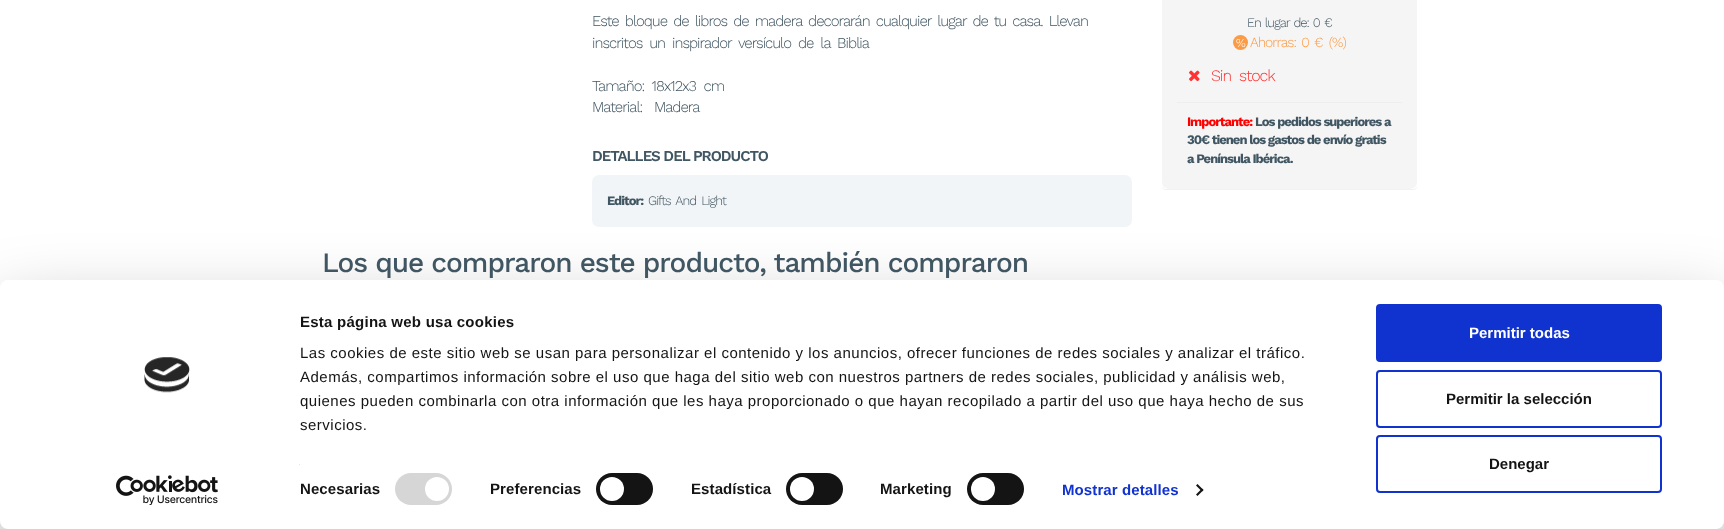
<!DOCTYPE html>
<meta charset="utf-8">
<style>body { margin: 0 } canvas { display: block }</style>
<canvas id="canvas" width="1724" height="529"></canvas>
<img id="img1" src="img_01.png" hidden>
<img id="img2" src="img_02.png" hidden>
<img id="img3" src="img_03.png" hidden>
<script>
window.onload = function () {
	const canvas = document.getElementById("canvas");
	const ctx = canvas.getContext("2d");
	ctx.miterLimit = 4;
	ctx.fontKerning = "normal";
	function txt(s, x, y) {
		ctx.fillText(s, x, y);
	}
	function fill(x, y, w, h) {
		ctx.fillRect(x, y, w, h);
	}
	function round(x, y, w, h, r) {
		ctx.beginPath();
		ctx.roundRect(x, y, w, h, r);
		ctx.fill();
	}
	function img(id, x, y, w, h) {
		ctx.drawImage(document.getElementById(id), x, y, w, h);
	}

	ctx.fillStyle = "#FFFFFF";
	fill(0, 0, 1724, 529);
	ctx.fillStyle = "#F2F5F7";
	round(592, 175, 540, 52, 7);
	ctx.fillStyle = "rgba(0, 0, 0, 0.05)";
	ctx.filter = "blur(0.5px)";
	ctx.beginPath();
	ctx.roundRect(1162, -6, 255, 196, 4);
	ctx.fill();
	ctx.filter = "none";
	ctx.fillStyle = "#FFFFFF";
	round(1162, -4, 255, 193, 4);
	ctx.fillStyle = "#F5F5F5";
	round(1162, -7, 255, 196, 7);
	ctx.fillStyle = "#FC9B45";
	ctx.beginPath();
	ctx.arc(1240.5, 42.5, 7.5, 0, Math.PI * 2);
	ctx.fill();
	img("img1", 1189, 70, 11, 12);
	ctx.fillStyle = "#EEEEEE";
	fill(1177, 102, 225, 1);
	ctx.fillStyle = "rgba(0, 0, 0, 0.3)";
	ctx.filter = "blur(35px)";
	ctx.beginPath();
	ctx.roundRect(0, 310, 1724, 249, 8);
	ctx.fill();
	ctx.filter = "none";
	ctx.fillStyle = "#FFFFFF";
	round(0, 280, 1724, 249, 8);
	img("img2", 144, 357, 46, 36);
	img("img3", 116, 475, 102, 30);
	ctx.fillStyle = "#E5E5E5";
	fill(299, 464, 1, 1);
	ctx.fillStyle = "#D6D6D6";
	round(395, 473, 57, 32, 16);
	ctx.fillStyle = "#FFFFFF";
	ctx.beginPath();
	ctx.arc(437, 489, 12, 0, Math.PI * 2);
	ctx.fill();
	ctx.fillStyle = "#141414";
	round(596, 473, 57, 32, 16);
	ctx.fillStyle = "#FFFFFF";
	ctx.beginPath();
	ctx.arc(612, 489, 12, 0, Math.PI * 2);
	ctx.fill();
	ctx.fillStyle = "#141414";
	round(786, 473, 57, 32, 16);
	ctx.fillStyle = "#FFFFFF";
	ctx.beginPath();
	ctx.arc(802, 489, 12, 0, Math.PI * 2);
	ctx.fill();
	ctx.fillStyle = "#141414";
	round(967, 473, 57, 32, 16);
	ctx.fillStyle = "#FFFFFF";
	ctx.beginPath();
	ctx.arc(983, 489, 12, 0, Math.PI * 2);
	ctx.fill();
	ctx.fillStyle = "#141414";
	ctx.beginPath();
	ctx.moveTo(1197.5, 484);
	ctx.lineTo(1203.5, 490);
	ctx.lineTo(1202, 491.5);
	ctx.lineTo(1196, 485.5);
	ctx.closePath();
	ctx.fill();
	ctx.beginPath();
	ctx.moveTo(1202, 488.5);
	ctx.lineTo(1203.5, 490);
	ctx.lineTo(1197.5, 496);
	ctx.lineTo(1196, 494.5);
	ctx.closePath();
	ctx.fill();
	ctx.fillStyle = "#1032CF";
	ctx.beginPath();
	ctx.roundRect(1377, 305, 284, 56, 3);
	ctx.fill();
	ctx.strokeStyle = "#1032CF";
	ctx.lineWidth = 2;
	ctx.stroke();
	ctx.beginPath();
	ctx.roundRect(1377, 371, 284, 56, 3);
	ctx.stroke();
	ctx.beginPath();
	ctx.roundRect(1377, 436, 284, 56, 3);
	ctx.stroke();
	ctx.letterSpacing = "-1px";
	ctx.wordSpacing = "2.4px";
	ctx.font = "300 15px Work Sans";
	ctx.fillStyle = "#405662";
	txt("Este bloque de libros de madera decorarán cualquier lugar de tu casa. Llevan", 592, 26);
	ctx.wordSpacing = "3.25px";
	txt("inscritos un inspirador versículo de la Biblia", 592, 48);
	ctx.wordSpacing = "4px";
	txt("Tamaño: 18x12x3 cm", 592, 91);
	ctx.wordSpacing = "8px";
	txt("Material: Madera", 592, 112);
	ctx.wordSpacing = "0px";
	ctx.font = "600 15px Work Sans";
	txt("DETALLES DEL PRODUCTO", 592, 161);
	ctx.font = "bold 13px Work Sans";
	txt("Editor:", 607, 205);
	ctx.wordSpacing = "2px";
	ctx.font = "300 13px Work Sans";
	txt("Gifts And Light", 648, 205);
	ctx.wordSpacing = "1px";
	txt("En lugar de: 0", 1247, 27);
	ctx.wordSpacing = "0px";
	txt("€", 1324, 27);
	ctx.font = "300 12px Work Sans";
	ctx.fillStyle = "#FFFFFF";
	txt("%", 1236, 47);
	ctx.wordSpacing = "2px";
	ctx.font = "300 14px Work Sans";
	ctx.fillStyle = "#FC9B45";
	txt("Ahorras: 0", 1250, 47);
	ctx.wordSpacing = "3px";
	txt("€ (%)", 1314, 47);
	ctx.wordSpacing = "4px";
	ctx.font = "300 16px Work Sans";
	ctx.fillStyle = "#FF3333";
	txt("Sin stock", 1211, 81);
	ctx.wordSpacing = "0px";
	ctx.font = "bold 13px Work Sans";
	ctx.fillStyle = "#FF0000";
	txt("Importante:", 1187, 126);
	ctx.fillStyle = "#405662";
	txt("Los pedidos superiores a", 1255, 126);
	txt("30€ tienen los gastos de envío gratis", 1187, 144);
	txt("a Península Ibérica.", 1187, 163);
	ctx.font = "500 28px Work Sans";
	txt("Los que compraron este producto, también compraron", 322, 272);
	ctx.letterSpacing = "0.25px";
	ctx.font = "bold 15px Liberation Sans";
	ctx.fillStyle = "#141414";
	txt("Esta página web usa cookies", 300, 327);
	ctx.letterSpacing = "0.5px";
	ctx.font = "15px Liberation Sans";
	txt("Las cookies de este sitio web se usan para personalizar el contenido y los anuncios, ofrecer funciones de redes sociales y analizar el tráfico.", 300, 358);
	txt("Además, compartimos información sobre el uso que haga del sitio web con nuestros partners de redes sociales, publicidad y análisis web,", 300, 382);
	txt("quienes pueden combinarla con otra información que les haya proporcionado o que hayan recopilado a partir del uso que haya hecho de sus", 300, 406);
	txt("servicios.", 300, 430);
	ctx.letterSpacing = "0.1px";
	ctx.font = "bold 15px Liberation Sans";
	txt("Necesarias", 300, 494);
	txt("Preferencias", 490, 494);
	txt("Estadística", 691, 494);
	txt("Marketing", 880, 494);
	ctx.fillStyle = "#1032CF";
	txt("Mostrar detalles", 1062, 495);
	ctx.letterSpacing = "0px";
	ctx.fillStyle = "#FFFFFF";
	txt("Permitir todas", 1469, 338);
	ctx.fillStyle = "#141414";
	txt("Permitir la selección", 1446, 404);
	txt("Denegar", 1489, 469);
};
</script>
